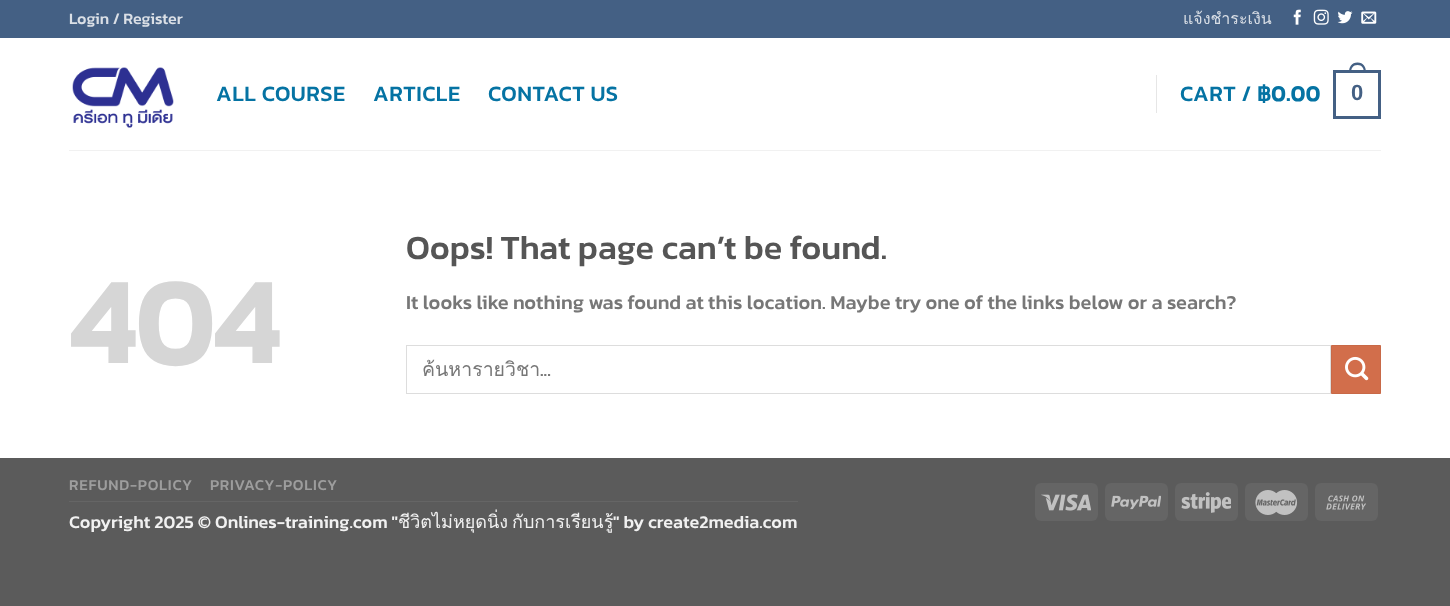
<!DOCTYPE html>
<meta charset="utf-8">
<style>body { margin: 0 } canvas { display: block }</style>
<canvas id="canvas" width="1450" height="606"></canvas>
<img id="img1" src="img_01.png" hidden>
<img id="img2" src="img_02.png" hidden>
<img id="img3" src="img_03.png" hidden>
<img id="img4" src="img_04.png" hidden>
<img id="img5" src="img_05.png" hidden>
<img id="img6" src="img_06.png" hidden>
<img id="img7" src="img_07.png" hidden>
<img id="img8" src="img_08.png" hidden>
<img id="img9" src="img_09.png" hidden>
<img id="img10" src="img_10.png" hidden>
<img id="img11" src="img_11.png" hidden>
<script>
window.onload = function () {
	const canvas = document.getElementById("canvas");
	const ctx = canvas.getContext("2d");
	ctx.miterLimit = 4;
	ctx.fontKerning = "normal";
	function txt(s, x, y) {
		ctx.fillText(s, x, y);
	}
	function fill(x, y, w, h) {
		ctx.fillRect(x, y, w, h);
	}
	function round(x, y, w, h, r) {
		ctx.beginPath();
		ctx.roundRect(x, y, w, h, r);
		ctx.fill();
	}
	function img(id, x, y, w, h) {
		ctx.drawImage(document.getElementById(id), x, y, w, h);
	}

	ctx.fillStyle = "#5B5B5B";
	fill(0, 0, 1450, 606);
	ctx.fillStyle = "#FFFFFF";
	fill(0, 38, 1450, 420);
	ctx.fillStyle = "#446084";
	fill(0, 0, 1450, 38);
	img("img1", 1293, 9, 8, 16);
	img("img2", 1313, 9, 16, 16);
	img("img3", 1337, 11, 16, 13);
	img("img4", 1361, 11, 16, 13);
	img("img5", 72, 67, 102, 61);
	ctx.fillStyle = "#E6E6E6";
	fill(1156, 75, 1, 38);
	ctx.strokeStyle = "#446084";
	ctx.lineWidth = 3;
	ctx.strokeRect(1334.5, 71.5, 45, 46);
	ctx.fillStyle = "#446084";
	ctx.beginPath();
	ctx.moveTo(1357.5, 62.5);
	ctx.bezierCurveTo(1363.5, 62.5, 1366, 67, 1366, 72.5);
	ctx.lineTo(1349, 72.5);
	ctx.bezierCurveTo(1349, 67, 1351.5, 62.5, 1357.5, 62.5);
	ctx.closePath();
	ctx.moveTo(1357.5, 65);
	ctx.bezierCurveTo(1362, 65, 1364, 68.5, 1364, 72.5);
	ctx.lineTo(1351, 72.5);
	ctx.bezierCurveTo(1351, 68.5, 1353, 65, 1357.5, 65);
	ctx.closePath();
	ctx.fill("evenodd");
	ctx.fillStyle = "#F1F1F1";
	fill(69, 150, 1312, 1);
	ctx.strokeStyle = "#DDDDDD";
	ctx.lineWidth = 1;
	ctx.strokeRect(406.5, 345.5, 924, 48);
	ctx.fillStyle = "#D26E4B";
	ctx.beginPath();
	ctx.rect(1331.5, 345.5, 49, 48);
	ctx.fill();
	ctx.strokeStyle = "#C86947";
	ctx.stroke();
	img("img6", 1345, 356, 24, 25);
	ctx.fillStyle = "#656565";
	fill(69, 501, 729, 1);
	round(1035, 483, 63, 38, 6);
	img("img7", 1041, 494, 50, 17);
	round(1105, 483, 63, 38, 6);
	img("img8", 1111, 495, 50, 15);
	round(1175, 483, 63, 38, 6);
	img("img9", 1181, 492, 50, 21);
	round(1245, 483, 63, 38, 6);
	img("img10", 1255, 490, 43, 25);
	round(1315, 483, 63, 38, 6);
	img("img11", 1326, 495, 40, 15);
	ctx.font = "500 16px Kanit";
	ctx.fillStyle = "#DADFE6";
	txt("Login / Register", 69, 24);
	ctx.font = "16px Loma";
	txt("แจ้งชำระเงิน", 1183, 24);
	ctx.letterSpacing = "0.5px";
	ctx.font = "500 22px Kanit";
	ctx.fillStyle = "#0573A3";
	txt("ALL COURSE", 216, 101);
	txt("ARTICLE", 373, 101);
	txt("CONTACT US", 488, 101);
	txt("CART /", 1180, 101);
	ctx.font = "bold 22px 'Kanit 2'";
	txt("฿", 1257, 101);
	ctx.font = "bold 22px Kanit";
	txt("0.00", 1271, 101);
	ctx.font = "bold 22px Liberation Sans";
	ctx.fillStyle = "#446084";
	txt("0", 1351, 100);
	ctx.letterSpacing = "0px";
	ctx.font = "bold 120px Kanit";
	ctx.fillStyle = "#D6D6D6";
	txt("404", 69, 363);
	ctx.font = "500 34px Kanit";
	ctx.fillStyle = "#555555";
	txt("Oops! That page can’t be found.", 406, 259);
	ctx.font = "500 20px Kanit";
	ctx.fillStyle = "#777777";
	txt("It looks like nothing was found at this location. Maybe try one of the links below or a search?", 406, 309);
	ctx.save();
	ctx.beginPath();
	ctx.rect(423, 354, 888, 31);
	ctx.clip();
	ctx.font = "19.5px Loma";
	txt("ค้นหารายวิชา", 422, 376);
	ctx.restore();
	ctx.font = "500 19.5px Kanit";
	txt("...", 540, 376);
	ctx.letterSpacing = "0.75px";
	ctx.font = "500 15.25px Kanit";
	ctx.fillStyle = "#9D9D9D";
	txt("REFUND-POLICY", 69, 490);
	txt("PRIVACY-POLICY", 210, 490);
	ctx.letterSpacing = "0px";
	ctx.font = "500 18px Kanit";
	ctx.fillStyle = "#F1F1F1";
	txt("Copyright 2025 © Onlines-training.com \"", 69, 528);
	ctx.font = "18px Loma";
	txt("ชีวิตไม่หยุดนิ่ง", 398, 528);
	txt("กับการเรียนรู้", 512, 528);
	ctx.font = "500 18px Kanit";
	txt("\" by create2media.com", 613, 528);
};
</script>
